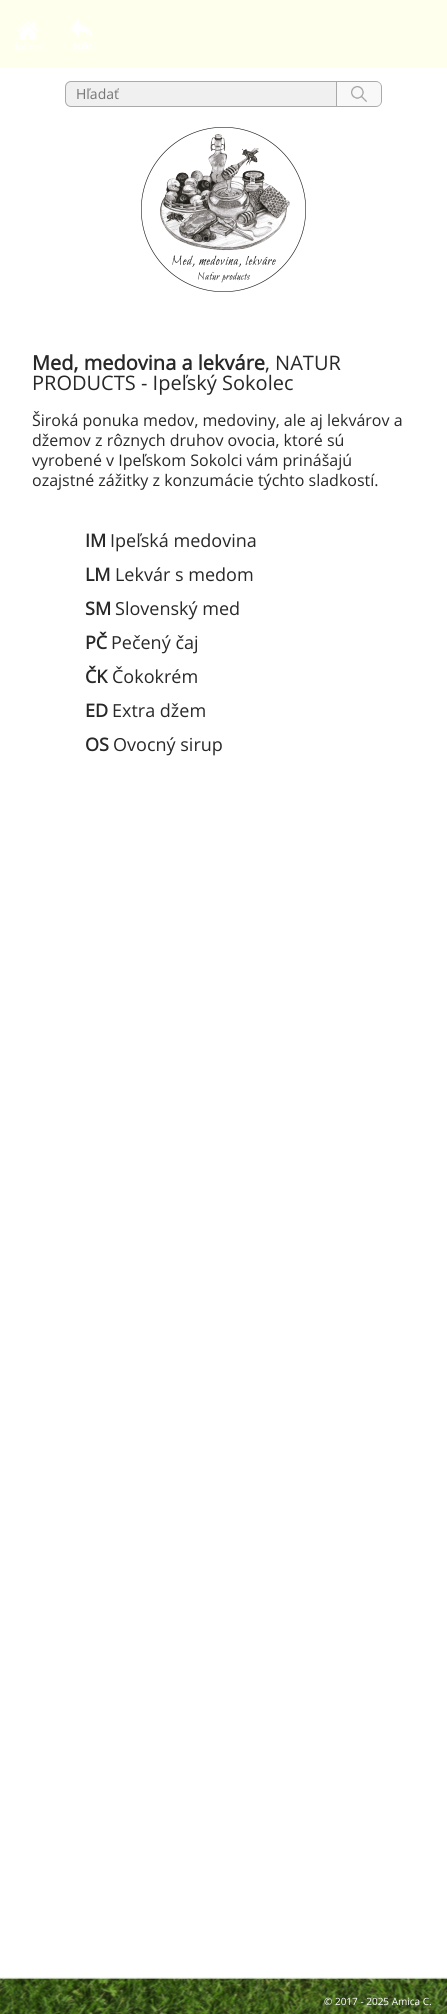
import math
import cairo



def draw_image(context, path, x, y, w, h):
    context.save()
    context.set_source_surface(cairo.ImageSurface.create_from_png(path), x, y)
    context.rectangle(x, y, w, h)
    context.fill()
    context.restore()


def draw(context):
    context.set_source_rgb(1, 1, 1)
    context.paint()
    context.set_source_rgb(1, 1, 238 / 255)
    context.rectangle(0, 0, 447, 68)
    context.fill()
    draw_image(context, "images/1.png", 12, 22, 31, 28)
    draw_image(context, "images/2.png", 70, 20, 23, 30)
    context.set_source_rgb(240 / 255, 240 / 255, 240 / 255)
    context.new_path()
    context.move_to(71, 81.5)
    context.line_to(336.5, 81.5)
    context.line_to(336.5, 106.5)
    context.line_to(71, 106.5)
    context.curve_to(68, 106.5, 65.5, 104, 65.5, 101)
    context.line_to(65.5, 87)
    context.curve_to(65.5, 84, 68, 81.5, 71, 81.5)
    context.close_path()
    context.fill_preserve()
    context.set_source_rgb(170 / 255, 170 / 255, 170 / 255)
    context.set_line_width(1)
    context.stroke()
    context.set_source_rgb(248 / 255, 248 / 255, 248 / 255)
    context.new_path()
    context.move_to(337, 81)
    context.line_to(376, 81)
    context.curve_to(379.5, 81, 382, 83.5, 382, 87)
    context.line_to(382, 101)
    context.curve_to(382, 104.5, 379.5, 107, 376, 107)
    context.line_to(337, 107)
    context.close_path()
    context.fill()
    draw_image(context, "images/3.png", 351, 86, 16, 16)
    context.set_source_rgb(170 / 255, 170 / 255, 170 / 255)
    context.set_fill_rule(cairo.FillRule.EVEN_ODD)
    context.new_path()
    context.move_to(337, 81)
    context.line_to(376, 81)
    context.curve_to(379, 81, 382, 84, 382, 87)
    context.line_to(382, 101)
    context.curve_to(382, 104, 379, 107, 376, 107)
    context.line_to(337, 107)
    context.close_path()
    context.move_to(337, 82)
    context.line_to(376, 82)
    context.curve_to(379, 82, 381, 84, 381, 87)
    context.line_to(381, 101)
    context.curve_to(381, 104, 379, 106, 376, 106)
    context.line_to(337, 106)
    context.close_path()
    context.fill()
    draw_image(context, "images/4.png", 141, 127, 165, 165)
    draw_image(context, "images/5.png", 0, 1977, 447, 37)
    context.select_font_face("Open Sans")
    context.set_font_size(14)
    context.set_source_rgb(117 / 255, 117 / 255, 117 / 255)
    context.move_to(76, 99)
    context.show_text("Hľadať")
    context.select_font_face("Open Sans", cairo.FontSlant.NORMAL, cairo.FontWeight.BOLD)
    context.set_font_size(20)
    context.set_source_rgb(40 / 255, 40 / 255, 40 / 255)
    context.move_to(32, 370)
    context.show_text("Med, medovina a lekváre")
    context.select_font_face("Open Sans")
    context.move_to(265, 370)
    context.show_text(", NATUR")
    context.move_to(32, 390)
    context.show_text("PRODUCTS - Ipeľský Sokolec")
    context.set_font_size(16)
    context.move_to(32, 426)
    context.show_text("Široká ponuka medov, medoviny, ale aj lekvárov a")
    context.move_to(32, 446)
    context.show_text("džemov z rôznych druhov ovocia, ktoré sú")
    context.move_to(32, 466)
    context.show_text("vyrobené v Ipeľskom Sokolci vám prinášajú")
    context.move_to(32, 486)
    context.show_text("ozajstné zážitky z konzumácie týchto sladkostí.")
    context.select_font_face("Open Sans", cairo.FontSlant.NORMAL, cairo.FontWeight.BOLD)
    context.set_font_size(18)
    context.move_to(85, 547)
    context.show_text("IM")
    context.select_font_face("Open Sans")
    context.move_to(110, 547)
    context.show_text("Ipeľská medovina")
    context.select_font_face("Open Sans", cairo.FontSlant.NORMAL, cairo.FontWeight.BOLD)
    context.move_to(85, 581)
    context.show_text("LM")
    context.select_font_face("Open Sans")
    context.move_to(115, 581)
    context.show_text("Lekvár s medom")
    context.select_font_face("Open Sans", cairo.FontSlant.NORMAL, cairo.FontWeight.BOLD)
    context.move_to(85, 615)
    context.show_text("SM")
    context.select_font_face("Open Sans")
    context.move_to(115, 615)
    context.show_text("Slovenský med")
    context.select_font_face("Open Sans", cairo.FontSlant.NORMAL, cairo.FontWeight.BOLD)
    context.move_to(85, 649)
    context.show_text("PČ")
    context.select_font_face("Open Sans")
    context.move_to(111, 649)
    context.show_text("Pečený čaj")
    context.select_font_face("Open Sans", cairo.FontSlant.NORMAL, cairo.FontWeight.BOLD)
    context.move_to(85, 683)
    context.show_text("ČK")
    context.select_font_face("Open Sans")
    context.move_to(112, 683)
    context.show_text("Čokokrém")
    context.select_font_face("Open Sans", cairo.FontSlant.NORMAL, cairo.FontWeight.BOLD)
    context.move_to(85, 717)
    context.show_text("ED")
    context.select_font_face("Open Sans")
    context.move_to(112, 717)
    context.show_text("Extra džem")
    context.select_font_face("Open Sans", cairo.FontSlant.NORMAL, cairo.FontWeight.BOLD)
    context.move_to(85, 751)
    context.show_text("OS")
    context.select_font_face("Open Sans")
    context.move_to(113, 751)
    context.show_text("Ovocný sirup")
    context.set_font_size(10)
    context.set_source_rgb(1, 1, 1)
    context.move_to(324, 2005)
    context.show_text("© 2017 - 2025 Amica C.")


surface = cairo.ImageSurface(cairo.Format.RGB24, 447, 2014)
context = cairo.Context(surface)
options = cairo.FontOptions()
options.set_hint_metrics(cairo.HintMetrics.OFF)
options.set_hint_style(cairo.HintStyle.NONE)
context.set_font_options(options)
context.set_miter_limit(4)
draw(context)
surface.write_to_png("out.png")
